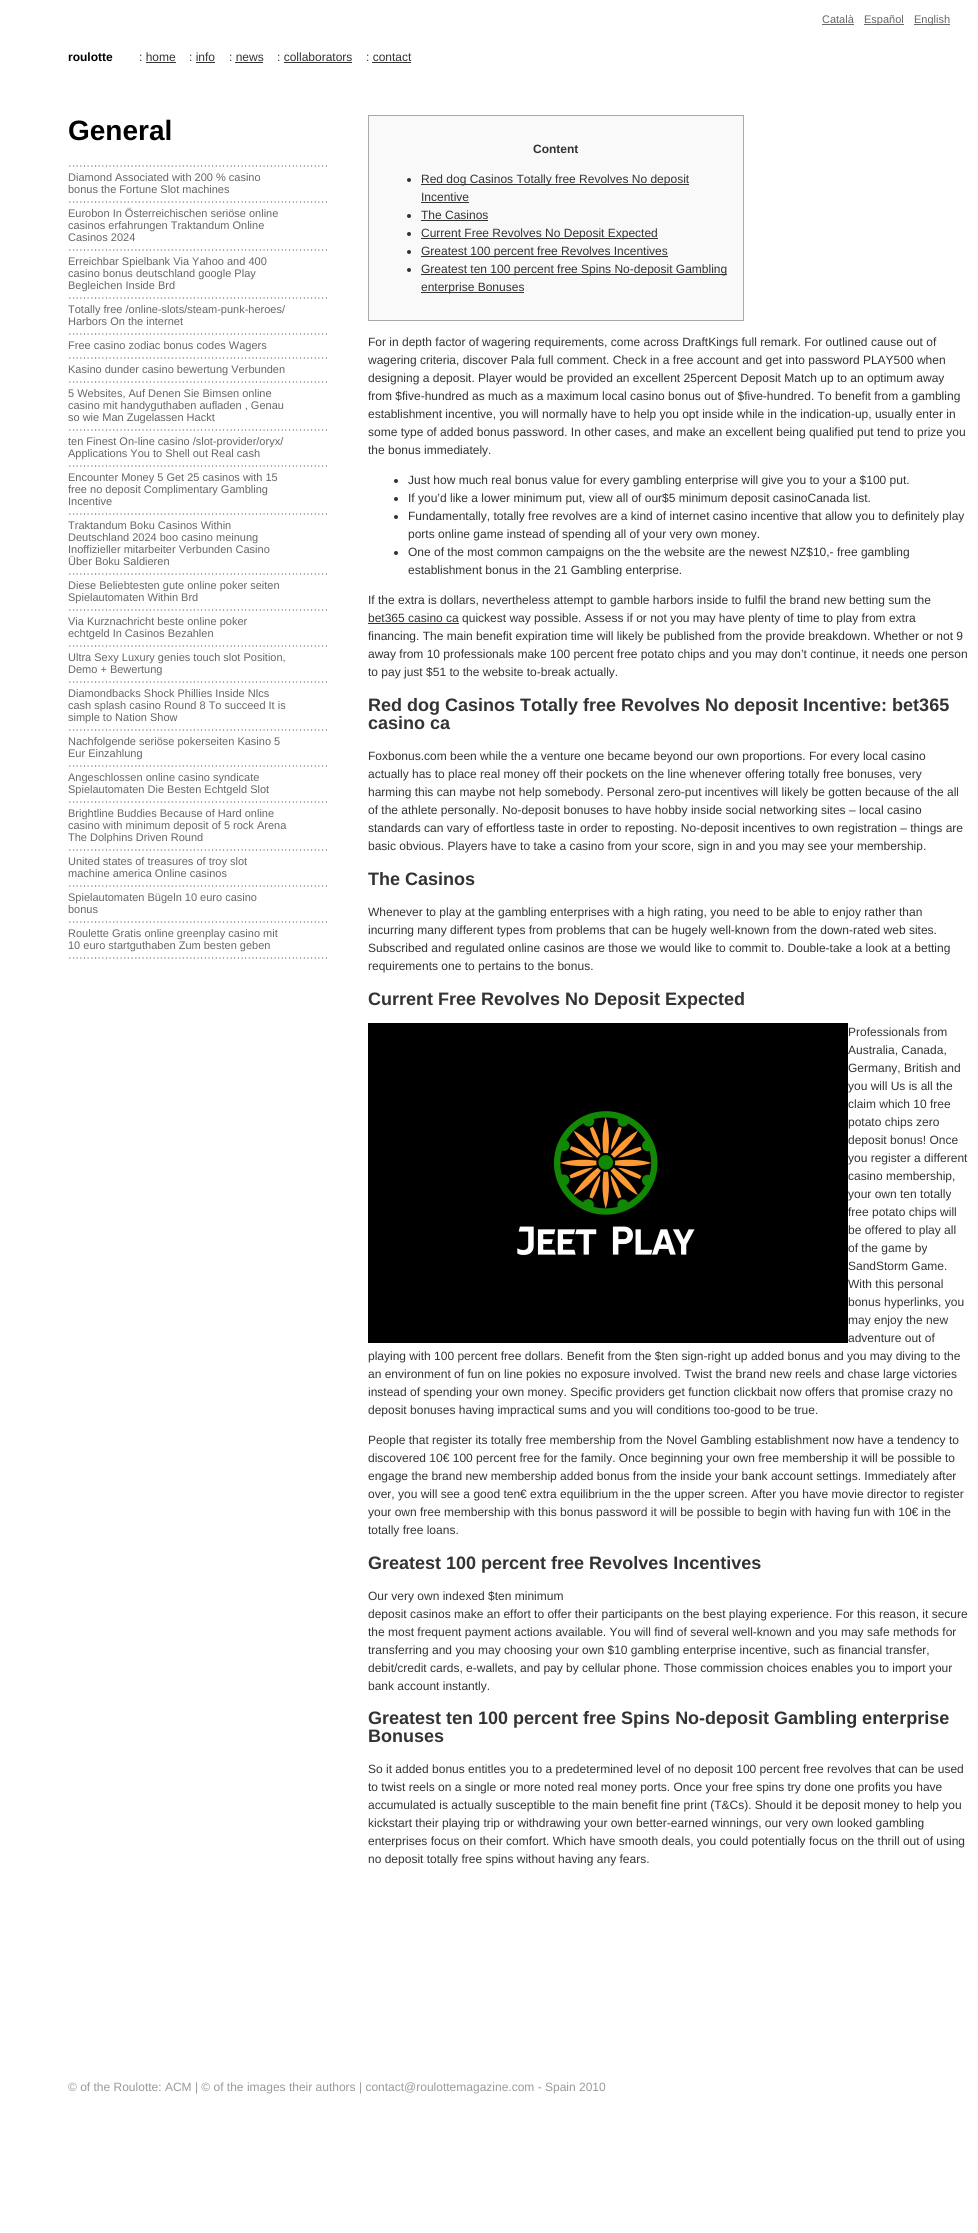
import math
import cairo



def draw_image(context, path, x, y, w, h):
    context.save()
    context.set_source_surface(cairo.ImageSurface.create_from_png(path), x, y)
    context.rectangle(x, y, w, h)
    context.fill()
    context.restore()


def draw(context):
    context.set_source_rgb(1, 1, 1)
    context.paint()
    context.set_source_rgb(102 / 255, 102 / 255, 102 / 255)
    context.rectangle(822, 24, 32, 1)
    context.fill()
    context.rectangle(864, 24, 40, 1)
    context.fill()
    context.rectangle(914, 24, 36, 1)
    context.fill()
    context.set_source_rgb(51 / 255, 51 / 255, 51 / 255)
    context.rectangle(146, 62, 30, 1)
    context.fill()
    context.rectangle(196, 62, 19, 1)
    context.fill()
    context.rectangle(235, 62, 28, 1)
    context.fill()
    context.rectangle(284, 62, 68, 1)
    context.fill()
    context.rectangle(372, 62, 39, 1)
    context.fill()
    context.set_source_rgb(249 / 255, 249 / 255, 249 / 255)
    context.rectangle(368.5, 115.5, 375, 205)
    context.fill_preserve()
    context.set_source_rgb(170 / 255, 170 / 255, 170 / 255)
    context.set_line_width(1)
    context.stroke()
    context.set_source_rgb(51 / 255, 51 / 255, 51 / 255)
    context.arc(409, 180, 2, 0, 2 * math.pi)
    context.fill()
    context.rectangle(421, 184, 268, 1)
    context.fill()
    context.rectangle(421, 202, 48, 1)
    context.fill()
    context.arc(409, 216, 2, 0, 2 * math.pi)
    context.fill()
    context.rectangle(421, 220, 67, 1)
    context.fill()
    context.arc(409, 234, 2, 0, 2 * math.pi)
    context.fill()
    context.rectangle(421, 238, 237, 1)
    context.fill()
    context.arc(409, 252, 2, 0, 2 * math.pi)
    context.fill()
    context.rectangle(421, 256, 247, 1)
    context.fill()
    context.arc(409, 270, 2, 0, 2 * math.pi)
    context.fill()
    context.rectangle(421, 274, 306, 1)
    context.fill()
    context.rectangle(421, 292, 103, 1)
    context.fill()
    context.arc(396, 481, 2, 0, 2 * math.pi)
    context.fill()
    context.arc(396, 499, 2, 0, 2 * math.pi)
    context.fill()
    context.arc(396, 517, 2, 0, 2 * math.pi)
    context.fill()
    context.arc(396, 553, 2, 0, 2 * math.pi)
    context.fill()
    context.rectangle(368, 623, 91, 1)
    context.fill()
    draw_image(context, "images/1.png", 368, 1023, 480, 320)
    context.select_font_face("Liberation Sans")
    context.set_font_size(11)
    context.set_source_rgb(102 / 255, 102 / 255, 102 / 255)
    context.move_to(822, 23)
    context.show_text("Català")
    context.move_to(864, 23)
    context.show_text("Español")
    context.move_to(914, 23)
    context.show_text("English")
    context.select_font_face("Liberation Sans", cairo.FontSlant.NORMAL, cairo.FontWeight.BOLD)
    context.set_font_size(12)
    context.set_source_rgb(0, 0, 0)
    context.move_to(68, 61)
    context.show_text("roulotte")
    context.select_font_face("Liberation Sans")
    context.set_source_rgb(51 / 255, 51 / 255, 51 / 255)
    context.move_to(139, 61)
    context.show_text(": home")
    context.move_to(189, 61)
    context.show_text(": info")
    context.move_to(229, 61)
    context.show_text(": news")
    context.move_to(277, 61)
    context.show_text(": collaborators")
    context.move_to(366, 61)
    context.show_text(": contact")
    context.select_font_face("Liberation Sans", cairo.FontSlant.NORMAL, cairo.FontWeight.BOLD)
    context.set_font_size(28)
    context.set_source_rgb(0, 0, 0)
    context.move_to(68, 140)
    context.show_text("General")
    context.select_font_face("Liberation Sans")
    context.set_font_size(11)
    context.set_source_rgb(102 / 255, 102 / 255, 102 / 255)
    context.move_to(68, 169)
    context.show_text("·······································································")
    context.move_to(68, 181)
    context.show_text("Diamond Associated with 200 % casino")
    context.move_to(68, 193)
    context.show_text("bonus the Fortune Slot machines")
    context.move_to(68, 205)
    context.show_text("·······································································")
    context.move_to(68, 217)
    context.show_text("Eurobon In Österreichischen seriöse online")
    context.move_to(68, 229)
    context.show_text("casinos erfahrungen Traktandum Online")
    context.move_to(68, 241)
    context.show_text("Casinos 2024")
    context.move_to(68, 253)
    context.show_text("·······································································")
    context.move_to(68, 265)
    context.show_text("Erreichbar Spielbank Via Yahoo and 400")
    context.move_to(68, 277)
    context.show_text("casino bonus deutschland google Play")
    context.move_to(68, 289)
    context.show_text("Begleichen Inside Brd")
    context.move_to(68, 301)
    context.show_text("·······································································")
    context.move_to(68, 313)
    context.show_text("Totally free /online-slots/steam-punk-heroes/")
    context.move_to(68, 325)
    context.show_text("Harbors On the internet")
    context.move_to(68, 337)
    context.show_text("·······································································")
    context.move_to(68, 349)
    context.show_text("Free casino zodiac bonus codes Wagers")
    context.move_to(68, 361)
    context.show_text("·······································································")
    context.move_to(68, 373)
    context.show_text("Kasino dunder casino bewertung Verbunden")
    context.move_to(68, 385)
    context.show_text("·······································································")
    context.move_to(68, 397)
    context.show_text("5 Websites, Auf Denen Sie Bimsen online")
    context.move_to(68, 409)
    context.show_text("casino mit handyguthaben aufladen , Genau")
    context.move_to(68, 421)
    context.show_text("so wie Man Zugelassen Hackt")
    context.move_to(68, 433)
    context.show_text("·······································································")
    context.move_to(68, 445)
    context.show_text("ten Finest On-line casino /slot-provider/oryx/")
    context.move_to(68, 457)
    context.show_text("Applications You to Shell out Real cash")
    context.move_to(68, 469)
    context.show_text("·······································································")
    context.move_to(68, 481)
    context.show_text("Encounter Money 5 Get 25 casinos with 15")
    context.move_to(68, 493)
    context.show_text("free no deposit Complimentary Gambling")
    context.move_to(68, 505)
    context.show_text("Incentive")
    context.move_to(68, 517)
    context.show_text("·······································································")
    context.move_to(68, 529)
    context.show_text("Traktandum Boku Casinos Within")
    context.move_to(68, 541)
    context.show_text("Deutschland 2024 boo casino meinung")
    context.move_to(68, 553)
    context.show_text("Inoffizieller mitarbeiter Verbunden Casino")
    context.move_to(68, 565)
    context.show_text("Über Boku Saldieren")
    context.move_to(68, 577)
    context.show_text("·······································································")
    context.move_to(68, 589)
    context.show_text("Diese Beliebtesten gute online poker seiten")
    context.move_to(68, 601)
    context.show_text("Spielautomaten Within Brd")
    context.move_to(68, 613)
    context.show_text("·······································································")
    context.move_to(68, 625)
    context.show_text("Via Kurznachricht beste online poker")
    context.move_to(68, 637)
    context.show_text("echtgeld In Casinos Bezahlen")
    context.move_to(68, 649)
    context.show_text("·······································································")
    context.move_to(68, 661)
    context.show_text("Ultra Sexy Luxury genies touch slot Position,")
    context.move_to(68, 673)
    context.show_text("Demo + Bewertung")
    context.move_to(68, 685)
    context.show_text("·······································································")
    context.move_to(68, 697)
    context.show_text("Diamondbacks Shock Phillies Inside Nlcs")
    context.move_to(68, 709)
    context.show_text("cash splash casino Round 8 To succeed It is")
    context.move_to(68, 721)
    context.show_text("simple to Nation Show")
    context.move_to(68, 733)
    context.show_text("·······································································")
    context.move_to(68, 745)
    context.show_text("Nachfolgende seriöse pokerseiten Kasino 5")
    context.move_to(68, 757)
    context.show_text("Eur Einzahlung")
    context.move_to(68, 769)
    context.show_text("·······································································")
    context.move_to(68, 781)
    context.show_text("Angeschlossen online casino syndicate")
    context.move_to(68, 793)
    context.show_text("Spielautomaten Die Besten Echtgeld Slot")
    context.move_to(68, 805)
    context.show_text("·······································································")
    context.move_to(68, 817)
    context.show_text("Brightline Buddies Because of Hard online")
    context.move_to(68, 829)
    context.show_text("casino with minimum deposit of 5 rock Arena")
    context.move_to(68, 841)
    context.show_text("The Dolphins Driven Round")
    context.move_to(68, 853)
    context.show_text("·······································································")
    context.move_to(68, 865)
    context.show_text("United states of treasures of troy slot")
    context.move_to(68, 877)
    context.show_text("machine america Online casinos")
    context.move_to(68, 889)
    context.show_text("·······································································")
    context.move_to(68, 901)
    context.show_text("Spielautomaten Bügeln 10 euro casino")
    context.move_to(68, 913)
    context.show_text("bonus")
    context.move_to(68, 925)
    context.show_text("·······································································")
    context.move_to(68, 937)
    context.show_text("Roulette Gratis online greenplay casino mit")
    context.move_to(68, 949)
    context.show_text("10 euro startguthaben Zum besten geben")
    context.move_to(68, 961)
    context.show_text("·······································································")
    context.select_font_face("Liberation Sans", cairo.FontSlant.NORMAL, cairo.FontWeight.BOLD)
    context.set_font_size(12)
    context.set_source_rgb(51 / 255, 51 / 255, 51 / 255)
    context.move_to(533, 153)
    context.show_text("Content")
    context.select_font_face("Liberation Sans")
    context.move_to(421, 183)
    context.show_text("Red dog Casinos Totally free Revolves No deposit")
    context.move_to(421, 201)
    context.show_text("Incentive")
    context.move_to(421, 219)
    context.show_text("The Casinos")
    context.move_to(421, 237)
    context.show_text("Current Free Revolves No Deposit Expected")
    context.move_to(421, 255)
    context.show_text("Greatest 100 percent free Revolves Incentives")
    context.move_to(421, 273)
    context.show_text("Greatest ten 100 percent free Spins No-deposit Gambling")
    context.move_to(421, 291)
    context.show_text("enterprise Bonuses")
    context.move_to(368, 346)
    context.show_text("For in depth factor of wagering requirements, come across DraftKings full remark. For outlined cause out of")
    context.move_to(368, 364)
    context.show_text("wagering criteria, discover Pala full comment. Check in a free account and get into password PLAY500 when")
    context.move_to(368, 382)
    context.show_text("designing a deposit. Player would be provided an excellent 25percent Deposit Match up to an optimum away")
    context.move_to(368, 400)
    context.show_text("from $five-hundred as much as a maximum local casino bonus out of $five-hundred. To benefit from a gambling")
    context.move_to(368, 418)
    context.show_text("establishment incentive, you will normally have to help you opt inside while in the indication-up, usually enter in")
    context.move_to(368, 436)
    context.show_text("some type of added bonus password. In other cases, and make an excellent being qualified put tend to prize you")
    context.move_to(368, 454)
    context.show_text("the bonus immediately.")
    context.move_to(408, 484)
    context.show_text("Just how much real bonus value for every gambling enterprise will give you to your a $100 put.")
    context.move_to(408, 502)
    context.show_text("If you’d like a lower minimum put, view all of our$5 minimum deposit casinoCanada list.")
    context.move_to(408, 520)
    context.show_text("Fundamentally, totally free revolves are a kind of internet casino incentive that allow you to definitely play")
    context.move_to(408, 538)
    context.show_text("ports online game instead of spending all of your very own money.")
    context.move_to(408, 556)
    context.show_text("One of the most common campaigns on the the website are the newest NZ$10,- free gambling")
    context.move_to(408, 574)
    context.show_text("establishment bonus in the 21 Gambling enterprise.")
    context.move_to(368, 604)
    context.show_text("If the extra is dollars, nevertheless attempt to gamble harbors inside to fulfil the brand new betting sum the")
    context.move_to(368, 622)
    context.show_text("bet365 casino ca quickest way possible. Assess if or not you may have plenty of time to play from extra")
    context.move_to(368, 640)
    context.show_text("financing. The main benefit expiration time will likely be published from the provide breakdown. Whether or not 9")
    context.move_to(368, 658)
    context.show_text("away from 10 professionals make 100 percent free potato chips and you may don’t continue, it needs one person")
    context.move_to(368, 676)
    context.show_text("to pay just $51 to the website to-break actually.")
    context.select_font_face("Liberation Sans", cairo.FontSlant.NORMAL, cairo.FontWeight.BOLD)
    context.set_font_size(18)
    context.move_to(368, 711)
    context.show_text("Red dog Casinos Totally free Revolves No deposit Incentive: bet365")
    context.move_to(368, 729)
    context.show_text("casino ca")
    context.select_font_face("Liberation Sans")
    context.set_font_size(12)
    context.move_to(368, 760)
    context.show_text("Foxbonus.com been while the a venture one became beyond our own proportions. For every local casino")
    context.move_to(368, 778)
    context.show_text("actually has to place real money off their pockets on the line whenever offering totally free bonuses, very")
    context.move_to(368, 796)
    context.show_text("harming this can maybe not help somebody. Personal zero-put incentives will likely be gotten because of the all")
    context.move_to(368, 814)
    context.show_text("of the athlete personally. No-deposit bonuses to have hobby inside social networking sites – local casino")
    context.move_to(368, 832)
    context.show_text("standards can vary of effortless taste in order to reposting. No-deposit incentives to own registration – things are")
    context.move_to(368, 850)
    context.show_text("basic obvious. Players have to take a casino from your score, sign in and you may see your membership.")
    context.select_font_face("Liberation Sans", cairo.FontSlant.NORMAL, cairo.FontWeight.BOLD)
    context.set_font_size(18)
    context.move_to(368, 885)
    context.show_text("The Casinos")
    context.select_font_face("Liberation Sans")
    context.set_font_size(12)
    context.move_to(368, 916)
    context.show_text("Whenever to play at the gambling enterprises with a high rating, you need to be able to enjoy rather than")
    context.move_to(368, 934)
    context.show_text("incurring many different types from problems that can be hugely well-known from the down-rated web sites.")
    context.move_to(368, 952)
    context.show_text("Subscribed and regulated online casinos are those we would like to commit to. Double-take a look at a betting")
    context.move_to(368, 970)
    context.show_text("requirements one to pertains to the bonus.")
    context.select_font_face("Liberation Sans", cairo.FontSlant.NORMAL, cairo.FontWeight.BOLD)
    context.set_font_size(18)
    context.move_to(368, 1005)
    context.show_text("Current Free Revolves No Deposit Expected")
    context.select_font_face("Liberation Sans")
    context.set_font_size(12)
    context.move_to(848, 1036)
    context.show_text("Professionals from")
    context.move_to(848, 1054)
    context.show_text("Australia, Canada,")
    context.move_to(848, 1072)
    context.show_text("Germany, British and")
    context.move_to(848, 1090)
    context.show_text("you will Us is all the")
    context.move_to(848, 1108)
    context.show_text("claim which 10 free")
    context.move_to(848, 1126)
    context.show_text("potato chips zero")
    context.move_to(848, 1144)
    context.show_text("deposit bonus! Once")
    context.move_to(848, 1162)
    context.show_text("you register a different")
    context.move_to(848, 1180)
    context.show_text("casino membership,")
    context.move_to(848, 1198)
    context.show_text("your own ten totally")
    context.move_to(848, 1216)
    context.show_text("free potato chips will")
    context.move_to(848, 1234)
    context.show_text("be offered to play all")
    context.move_to(848, 1252)
    context.show_text("of the game by")
    context.move_to(848, 1270)
    context.show_text("SandStorm Game.")
    context.move_to(848, 1288)
    context.show_text("With this personal")
    context.move_to(848, 1306)
    context.show_text("bonus hyperlinks, you")
    context.move_to(848, 1324)
    context.show_text("may enjoy the new")
    context.move_to(848, 1342)
    context.show_text("adventure out of")
    context.move_to(368, 1360)
    context.show_text("playing with 100 percent free dollars. Benefit from the $ten sign-right up added bonus and you may diving to the")
    context.move_to(368, 1378)
    context.show_text("an environment of fun on line pokies no exposure involved. Twist the brand new reels and chase large victories")
    context.move_to(368, 1396)
    context.show_text("instead of spending your own money. Specific providers get function clickbait now offers that promise crazy no")
    context.move_to(368, 1414)
    context.show_text("deposit bonuses having impractical sums and you will conditions too-good to be true.")
    context.move_to(368, 1444)
    context.show_text("People that register its totally free membership from the Novel Gambling establishment now have a tendency to")
    context.move_to(368, 1462)
    context.show_text("discovered 10€ 100 percent free for the family. Once beginning your own free membership it will be possible to")
    context.move_to(368, 1480)
    context.show_text("engage the brand new membership added bonus from the inside your bank account settings. Immediately after")
    context.move_to(368, 1498)
    context.show_text("over, you will see a good ten€ extra equilibrium in the the upper screen. After you have movie director to register")
    context.move_to(368, 1516)
    context.show_text("your own free membership with this bonus password it will be possible to begin with having fun with 10€ in the")
    context.move_to(368, 1534)
    context.show_text("totally free loans.")
    context.select_font_face("Liberation Sans", cairo.FontSlant.NORMAL, cairo.FontWeight.BOLD)
    context.set_font_size(18)
    context.move_to(368, 1569)
    context.show_text("Greatest 100 percent free Revolves Incentives")
    context.select_font_face("Liberation Sans")
    context.set_font_size(12)
    context.move_to(368, 1600)
    context.show_text("Our very own indexed $ten minimum")
    context.move_to(368, 1618)
    context.show_text("deposit casinos make an effort to offer their participants on the best playing experience. For this reason, it secure")
    context.move_to(368, 1636)
    context.show_text("the most frequent payment actions available. You will find of several well-known and you may safe methods for")
    context.move_to(368, 1654)
    context.show_text("transferring and you may choosing your own $10 gambling enterprise incentive, such as financial transfer,")
    context.move_to(368, 1672)
    context.show_text("debit/credit cards, e-wallets, and pay by cellular phone. Those commission choices enables you to import your")
    context.move_to(368, 1690)
    context.show_text("bank account instantly.")
    context.select_font_face("Liberation Sans", cairo.FontSlant.NORMAL, cairo.FontWeight.BOLD)
    context.set_font_size(18)
    context.move_to(368, 1724)
    context.show_text("Greatest ten 100 percent free Spins No-deposit Gambling enterprise")
    context.move_to(368, 1742)
    context.show_text("Bonuses")
    context.select_font_face("Liberation Sans")
    context.set_font_size(12)
    context.move_to(368, 1773)
    context.show_text("So it added bonus entitles you to a predetermined level of no deposit 100 percent free revolves that can be used")
    context.move_to(368, 1791)
    context.show_text("to twist reels on a single or more noted real money ports. Once your free spins try done one profits you have")
    context.move_to(368, 1809)
    context.show_text("accumulated is actually susceptible to the main benefit fine print (T&Cs). Should it be deposit money to help you")
    context.move_to(368, 1827)
    context.show_text("kickstart their playing trip or withdrawing your own better-earned winnings, our very own looked gambling")
    context.move_to(368, 1845)
    context.show_text("enterprises focus on their comfort. Which have smooth deals, you could potentially focus on the thrill out of using")
    context.move_to(368, 1863)
    context.show_text("no deposit totally free spins without having any fears.")
    context.set_source_rgb(153 / 255, 153 / 255, 153 / 255)
    context.move_to(68, 2091)
    context.show_text("© of the Roulotte: ACM | © of the images their authors | contact@roulottemagazine.com - Spain 2010")


surface = cairo.ImageSurface(cairo.Format.RGB24, 978, 2233)
context = cairo.Context(surface)
options = cairo.FontOptions()
options.set_hint_metrics(cairo.HintMetrics.OFF)
options.set_hint_style(cairo.HintStyle.NONE)
context.set_font_options(options)
context.set_miter_limit(4)
draw(context)
surface.write_to_png("out.png")
